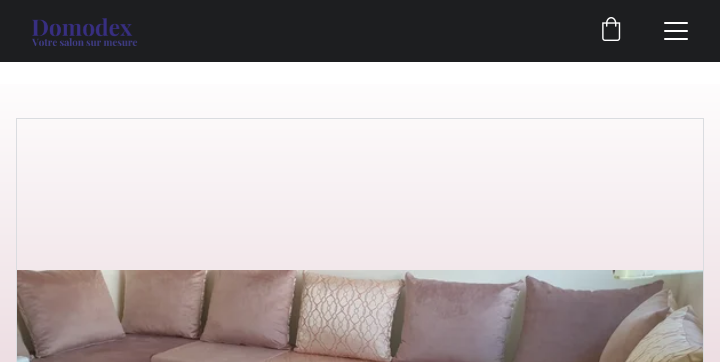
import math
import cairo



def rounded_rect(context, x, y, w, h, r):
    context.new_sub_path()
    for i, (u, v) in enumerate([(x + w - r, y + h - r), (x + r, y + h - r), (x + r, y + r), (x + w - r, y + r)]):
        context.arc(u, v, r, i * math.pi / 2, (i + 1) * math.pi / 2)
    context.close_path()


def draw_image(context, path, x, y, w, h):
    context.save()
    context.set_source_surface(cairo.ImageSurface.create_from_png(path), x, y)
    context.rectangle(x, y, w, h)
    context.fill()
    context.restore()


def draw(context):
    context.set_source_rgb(1, 1, 1)
    context.paint()
    context.set_source_rgb(29 / 255, 30 / 255, 32 / 255)
    context.rectangle(0, 0, 720, 62)
    context.fill()
    draw_image(context, "images/1.png", 32, 18, 106, 28)
    draw_image(context, "images/2.png", 602, 17, 19, 24)
    context.set_source_rgb(1, 1, 1)
    rounded_rect(context, 664, 22, 24, 2, 1)
    context.fill()
    rounded_rect(context, 664, 30, 24, 2, 1)
    context.fill()
    rounded_rect(context, 664, 38, 24, 2, 1)
    context.fill()
    gradient = cairo.LinearGradient(360, 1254, 360, 62)
    gradient.add_color_stop_rgba(0, 182 / 255, 121 / 255, 141 / 255, 1)
    gradient.add_color_stop_rgba(1, 1, 1, 1, 1)
    context.set_source(gradient)
    context.rectangle(0, 84, 720, 278)
    context.fill()
    context.rectangle(16.5, 118.5, 687, 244)
    context.set_source_rgb(218 / 255, 220 / 255, 224 / 255)
    context.set_line_width(1)
    context.stroke()
    draw_image(context, "images/3.png", 17, 270, 686, 92)


surface = cairo.ImageSurface(cairo.Format.RGB24, 720, 362)
context = cairo.Context(surface)
options = cairo.FontOptions()
options.set_hint_metrics(cairo.HintMetrics.OFF)
options.set_hint_style(cairo.HintStyle.NONE)
context.set_font_options(options)
context.set_miter_limit(4)
draw(context)
surface.write_to_png("out.png")
